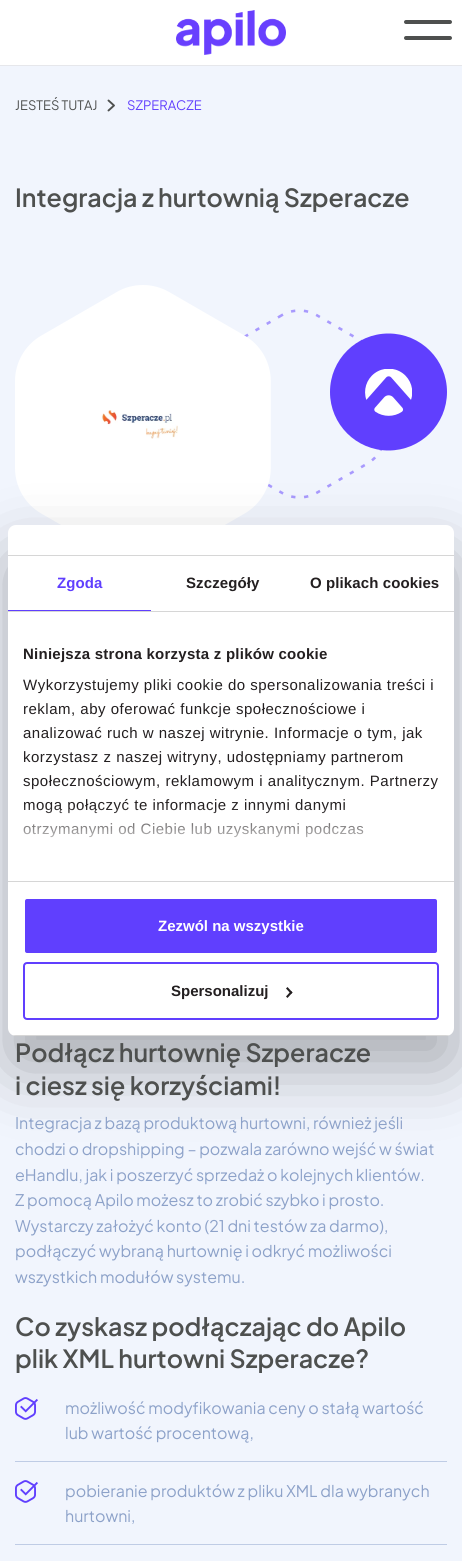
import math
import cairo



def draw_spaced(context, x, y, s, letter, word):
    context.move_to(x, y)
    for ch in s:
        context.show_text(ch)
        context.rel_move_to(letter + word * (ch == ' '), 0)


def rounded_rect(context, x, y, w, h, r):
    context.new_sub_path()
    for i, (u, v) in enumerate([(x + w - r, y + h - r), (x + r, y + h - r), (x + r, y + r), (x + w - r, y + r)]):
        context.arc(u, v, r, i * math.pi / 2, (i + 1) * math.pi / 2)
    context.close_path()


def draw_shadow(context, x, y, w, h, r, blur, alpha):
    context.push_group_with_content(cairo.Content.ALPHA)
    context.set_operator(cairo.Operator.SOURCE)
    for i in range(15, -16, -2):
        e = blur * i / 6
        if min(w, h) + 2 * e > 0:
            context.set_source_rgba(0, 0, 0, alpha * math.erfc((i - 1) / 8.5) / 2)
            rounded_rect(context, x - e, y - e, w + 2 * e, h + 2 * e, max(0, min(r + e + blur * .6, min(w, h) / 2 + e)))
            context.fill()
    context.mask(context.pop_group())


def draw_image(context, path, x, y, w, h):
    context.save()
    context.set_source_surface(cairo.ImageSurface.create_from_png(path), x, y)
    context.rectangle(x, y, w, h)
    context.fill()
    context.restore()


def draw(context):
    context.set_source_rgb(241 / 255, 245 / 255, 253 / 255)
    context.paint()
    context.set_source_rgb(230 / 255, 231 / 255, 235 / 255)
    context.rectangle(0, 65, 462, 1)
    context.fill()
    context.set_source_rgb(1, 1, 1)
    context.rectangle(0, 0, 462, 65)
    context.fill()
    draw_image(context, "images/1.png", 176, 10, 110, 45)
    context.set_source_rgb(78 / 255, 80 / 255, 79 / 255)
    rounded_rect(context, 404, 20, 48, 4, 2)
    context.fill()
    rounded_rect(context, 404, 36, 48, 4, 2)
    context.fill()
    context.new_path()
    context.move_to(108.5, 110.5)
    context.line_to(114, 105.5)
    context.line_to(108.5, 100.5)
    context.set_line_width(1.9)
    context.set_line_cap(cairo.LineCap.ROUND)
    context.set_line_join(cairo.LineJoin.ROUND)
    context.stroke()
    draw_image(context, "images/2.png", 15, 285, 432, 240)
    draw_image(context, "images/3.png", 101, 410, 77, 29)
    context.set_source_rgb(191 / 255, 204 / 255, 229 / 255)
    context.rectangle(15, 1461, 432, 1)
    context.fill()
    draw_image(context, "images/4.png", 15, 1397, 23, 23)
    context.rectangle(15, 1544, 432, 1)
    context.fill()
    draw_image(context, "images/4.png", 15, 1480, 23, 23)
    context.set_source_rgb(0, 0, 0)
    draw_shadow(context, 8, 557, 446, 511, 8, 34, 0.3)
    context.set_source_rgb(1, 1, 1)
    rounded_rect(context, 8, 525, 446, 511, 8)
    context.fill()
    context.set_source_rgb(214 / 255, 214 / 255, 214 / 255)
    context.rectangle(8, 555, 446, 1)
    context.fill()
    context.rectangle(8, 611, 446, 1)
    context.fill()
    context.set_source_rgb(96 / 255, 63 / 255, 254 / 255)
    context.rectangle(8, 610, 143, 1)
    context.fill()
    context.set_source_rgb(214 / 255, 214 / 255, 214 / 255)
    context.rectangle(8, 881, 446, 1)
    context.fill()
    context.save()
    rounded_rect(context, 8, 525, 446, 511, 8)
    context.clip()
    context.rectangle(8, 1035, 446, 1)
    context.fill()
    context.restore()
    context.set_source_rgb(96 / 255, 63 / 255, 254 / 255)
    rounded_rect(context, 24, 898, 414, 56, 3)
    context.fill_preserve()
    context.set_source_rgb(1, 1, 1)
    context.set_line_width(2)
    context.set_line_cap(cairo.LineCap.BUTT)
    context.set_line_join(cairo.LineJoin.MITER)
    context.stroke()
    rounded_rect(context, 24, 963, 414, 56, 3)
    context.set_source_rgb(96 / 255, 63 / 255, 254 / 255)
    context.stroke()
    context.set_source_rgb(35 / 255, 31 / 255, 32 / 255)
    context.new_path()
    context.move_to(287.5, 987)
    context.line_to(292.5, 992.5)
    context.line_to(291, 994)
    context.line_to(286, 988.5)
    context.close_path()
    context.fill()
    context.new_path()
    context.move_to(291, 991)
    context.line_to(292.5, 992.5)
    context.line_to(287.5, 998)
    context.line_to(286, 996.5)
    context.close_path()
    context.fill()
    context.select_font_face("Plus Jakarta Sans")
    context.set_font_size(13)
    context.set_source_rgb(78 / 255, 80 / 255, 79 / 255)
    context.move_to(15, 110)
    context.show_text("JESTEŚ TUTAJ")
    context.set_source_rgb(96 / 255, 63 / 255, 254 / 255)
    context.move_to(127, 110)
    context.show_text("SZPERACZE")
    context.select_font_face("Plus Jakarta Sans SemiBold")
    context.set_font_size(25)
    context.set_source_rgb(78 / 255, 80 / 255, 79 / 255)
    context.move_to(15, 207)
    context.show_text("Integracja z hurtownią Szperacze")
    context.move_to(15, 1062)
    context.show_text("Podłącz hurtownię Szperacze")
    context.move_to(15, 1095)
    context.show_text("i ciesz się korzyściami!")
    context.select_font_face("Plus Jakarta Sans")
    context.set_font_size(16)
    context.set_source_rgb(141 / 255, 162 / 255, 201 / 255)
    context.move_to(15, 1129)
    context.show_text("Integracja z bazą produktową hurtowni, również jeśli")
    context.move_to(15, 1155)
    context.show_text("chodzi o dropshipping – pozwala zarówno wejść w świat")
    context.move_to(15, 1181)
    context.show_text("eHandlu, jak i poszerzyć sprzedaż o kolejnych klientów.")
    context.move_to(15, 1206)
    context.show_text("Z pomocą Apilo możesz to zrobić szybko i prosto.")
    context.move_to(15, 1232)
    context.show_text("Wystarczy założyć konto (21 dni testów za darmo),")
    context.move_to(15, 1257)
    context.show_text("podłączyć wybraną hurtownię i odkryć możliwości")
    context.move_to(15, 1283)
    context.show_text("wszystkich modułów systemu.")
    context.select_font_face("Plus Jakarta Sans SemiBold")
    context.set_font_size(25)
    context.set_source_rgb(78 / 255, 80 / 255, 79 / 255)
    context.move_to(15, 1336)
    context.show_text("Co zyskasz podłączając do Apilo")
    context.move_to(15, 1368)
    context.show_text("plik XML hurtowni Szperacze?")
    context.select_font_face("Plus Jakarta Sans")
    context.set_font_size(16)
    context.set_source_rgb(141 / 255, 162 / 255, 201 / 255)
    context.move_to(65, 1414)
    context.show_text("możliwość modyfikowania ceny o stałą wartość")
    context.move_to(65, 1439)
    context.show_text("lub wartość procentową,")
    context.move_to(65, 1497)
    context.show_text("pobieranie produktów z pliku XML dla wybranych")
    context.move_to(65, 1522)
    context.show_text("hurtowni,")
    context.select_font_face("Liberation Sans", cairo.FontSlant.NORMAL, cairo.FontWeight.BOLD)
    context.set_font_size(15)
    context.set_source_rgb(96 / 255, 63 / 255, 254 / 255)
    draw_spaced(context, 57, 588, "Zgoda", 0.1, 0)
    context.set_source_rgb(35 / 255, 31 / 255, 32 / 255)
    draw_spaced(context, 186, 588, "Szczegóły", 0.1, 0)
    draw_spaced(context, 310, 588, "O plikach cookies", 0.1, 0)
    draw_spaced(context, 23, 659, "Niniejsza strona korzysta z plików cookie", 0.25, 0)
    context.select_font_face("Liberation Sans")
    draw_spaced(context, 23, 690, "Wykorzystujemy pliki cookie do spersonalizowania treści i", 0.5, 0)
    draw_spaced(context, 23, 714, "reklam, aby oferować funkcje społecznościowe i", 0.5, 0)
    draw_spaced(context, 23, 738, "analizować ruch w naszej witrynie. Informacje o tym, jak", 0.5, 0)
    draw_spaced(context, 23, 762, "korzystasz z naszej witryny, udostępniamy partnerom", 0.5, 0)
    draw_spaced(context, 23, 786, "społecznościowym, reklamowym i analitycznym. Partnerzy", 0.5, 0)
    draw_spaced(context, 23, 810, "mogą połączyć te informacje z innymi danymi", 0.5, 0)
    draw_spaced(context, 23, 834, "otrzymanymi od Ciebie lub uzyskanymi podczas", 0.5, 0)
    gradient = cairo.LinearGradient(225, 881, 225, 806)
    gradient.add_color_stop_rgba(0, 1, 1, 1, 1)
    gradient.add_color_stop_rgba(0.5, 1, 1, 1, 0.8)
    gradient.add_color_stop_rgba(1, 1, 1, 1, 0)
    context.set_source(gradient)
    context.rectangle(23, 807, 341, 31)
    context.fill()
    context.select_font_face("Liberation Sans", cairo.FontSlant.NORMAL, cairo.FontWeight.BOLD)
    context.set_source_rgb(1, 1, 1)
    context.move_to(158, 931)
    context.show_text("Zezwól na wszystkie")
    context.set_source_rgb(35 / 255, 31 / 255, 32 / 255)
    context.move_to(171, 996)
    context.show_text("Spersonalizuj")


surface = cairo.ImageSurface(cairo.Format.RGB24, 462, 1561)
context = cairo.Context(surface)
options = cairo.FontOptions()
options.set_hint_metrics(cairo.HintMetrics.OFF)
options.set_hint_style(cairo.HintStyle.NONE)
context.set_font_options(options)
context.set_miter_limit(4)
draw(context)
surface.write_to_png("out.png")
